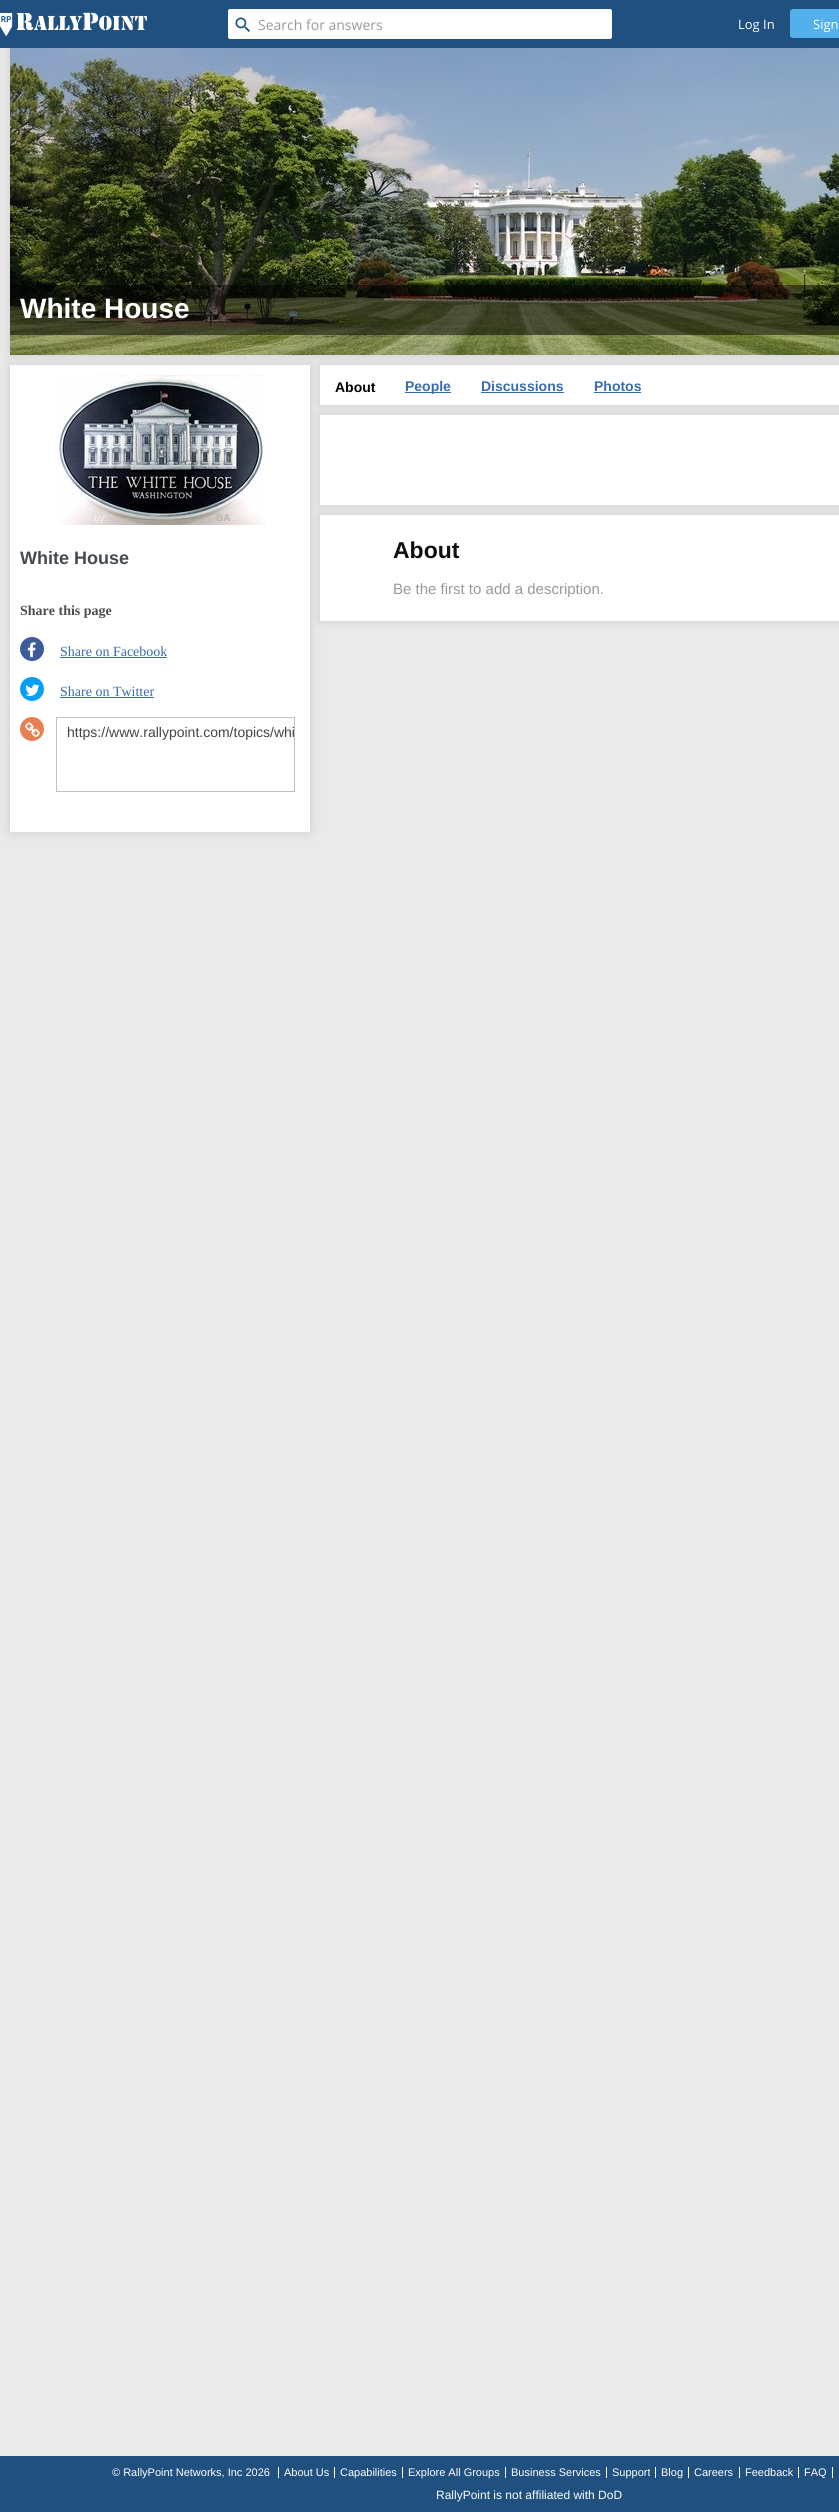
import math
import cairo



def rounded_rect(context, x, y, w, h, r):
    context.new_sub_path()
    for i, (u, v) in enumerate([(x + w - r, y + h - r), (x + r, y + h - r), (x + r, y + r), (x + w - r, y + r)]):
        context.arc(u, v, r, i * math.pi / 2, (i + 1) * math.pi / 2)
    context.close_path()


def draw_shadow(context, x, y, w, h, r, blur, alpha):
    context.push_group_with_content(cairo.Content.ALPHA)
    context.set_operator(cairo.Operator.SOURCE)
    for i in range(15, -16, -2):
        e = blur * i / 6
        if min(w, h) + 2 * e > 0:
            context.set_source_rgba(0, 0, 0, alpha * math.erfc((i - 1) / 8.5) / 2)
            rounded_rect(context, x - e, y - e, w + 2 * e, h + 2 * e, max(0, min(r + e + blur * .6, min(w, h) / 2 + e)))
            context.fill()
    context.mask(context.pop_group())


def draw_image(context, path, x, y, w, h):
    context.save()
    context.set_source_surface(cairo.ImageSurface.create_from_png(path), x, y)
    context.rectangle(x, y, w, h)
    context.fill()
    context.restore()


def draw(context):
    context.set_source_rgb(234 / 255, 234 / 255, 234 / 255)
    context.paint()
    context.set_source_rgb(204 / 255, 204 / 255, 204 / 255)
    draw_shadow(context, 10, 365, 300, 467, 0, 5, 1)
    context.set_source_rgb(1, 1, 1)
    context.rectangle(10, 365, 300, 467)
    context.fill()
    context.set_source_rgb(204 / 255, 204 / 255, 204 / 255)
    draw_shadow(context, 320, 365, 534, 40, 0, 5, 1)
    context.set_source_rgb(1, 1, 1)
    context.rectangle(320, 365, 519, 40)
    context.fill()
    context.set_source_rgb(204 / 255, 204 / 255, 204 / 255)
    draw_shadow(context, 10, 15, 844, 340, 0, 5, 1)
    context.set_source_rgb(31 / 255, 80 / 255, 128 / 255)
    context.rectangle(0, 0, 839, 48)
    context.fill()
    draw_image(context, "images/1.png", 0, 12, 147, 25)
    context.set_source_rgb(1, 1, 1)
    rounded_rect(context, 228, 9, 384, 30, 2)
    context.fill()
    draw_image(context, "images/2.png", 235, 17, 15, 15)
    context.set_source_rgb(83 / 255, 176 / 255, 234 / 255)
    rounded_rect(context, 790, 9, 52, 29, 3)
    context.fill()
    draw_image(context, "images/3.png", 10, 48, 829, 307)
    context.set_source_rgba(0, 0, 0, 0.5)
    context.rectangle(10, 285, 829, 50)
    context.fill()
    context.set_source_rgb(56 / 255, 108 / 255, 174 / 255)
    context.rectangle(405, 392, 46, 1)
    context.fill()
    context.rectangle(481, 392, 83, 1)
    context.fill()
    context.rectangle(594, 392, 47, 1)
    context.fill()
    context.set_source_rgb(204 / 255, 204 / 255, 204 / 255)
    draw_shadow(context, 320, 415, 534, 90, 0, 5, 1)
    context.set_source_rgb(1, 1, 1)
    context.rectangle(320, 415, 519, 90)
    context.fill()
    context.set_source_rgb(204 / 255, 204 / 255, 204 / 255)
    draw_shadow(context, 320, 515, 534, 106, 0, 5, 1)
    context.set_source_rgb(1, 1, 1)
    context.rectangle(320, 515, 519, 106)
    context.fill()
    draw_image(context, "images/4.png", 55, 375, 211, 150)
    context.set_source_rgb(60 / 255, 91 / 255, 155 / 255)
    context.arc(32, 649, 12, 0, 2 * math.pi)
    context.fill()
    draw_image(context, "images/5.png", 27, 642, 9, 16)
    context.set_source_rgb(56 / 255, 108 / 255, 174 / 255)
    context.rectangle(60, 657, 107, 1)
    context.fill()
    context.set_source_rgb(5 / 255, 159 / 255, 245 / 255)
    context.arc(32, 689, 12, 0, 2 * math.pi)
    context.fill()
    draw_image(context, "images/6.png", 25, 684, 15, 12)
    context.set_source_rgb(56 / 255, 108 / 255, 174 / 255)
    context.rectangle(60, 697, 94, 1)
    context.fill()
    context.set_source_rgb(233 / 255, 128 / 255, 84 / 255)
    context.arc(32, 729, 12, 0, 2 * math.pi)
    context.fill()
    draw_image(context, "images/7.png", 25, 722, 15, 15)
    context.rectangle(56.5, 717.5, 238, 74)
    context.set_source_rgb(193 / 255, 193 / 255, 193 / 255)
    context.set_line_width(1)
    context.stroke()
    context.set_source_rgb(32 / 255, 80 / 255, 128 / 255)
    context.rectangle(0, 2456, 839, 56)
    context.fill()
    context.set_source_rgb(1, 1, 1)
    context.rectangle(278, 2467, 1, 11)
    context.fill()
    context.rectangle(334, 2467, 1, 11)
    context.fill()
    context.rectangle(402, 2467, 1, 11)
    context.fill()
    context.rectangle(505, 2467, 1, 11)
    context.fill()
    context.rectangle(606, 2467, 1, 11)
    context.fill()
    context.rectangle(655, 2467, 1, 11)
    context.fill()
    context.rectangle(688, 2467, 1, 11)
    context.fill()
    context.rectangle(739, 2467, 1, 11)
    context.fill()
    context.rectangle(798, 2467, 1, 11)
    context.fill()
    context.rectangle(832, 2467, 1, 11)
    context.fill()
    context.select_font_face("Open Sans")
    context.set_font_size(14)
    context.set_source_rgb(153 / 255, 153 / 255, 153 / 255)
    context.move_to(258, 30)
    context.show_text("Search for answers")
    context.set_font_size(13)
    context.set_source_rgb(1, 1, 1)
    context.move_to(738, 29)
    context.show_text("Log In")
    context.move_to(813, 29)
    context.show_text("Sign")
    context.select_font_face("Liberation Sans", cairo.FontSlant.NORMAL, cairo.FontWeight.BOLD)
    context.set_font_size(28)
    context.move_to(20, 318)
    context.show_text("White House")
    context.set_font_size(14)
    context.set_source_rgb(0, 0, 0)
    context.move_to(335, 392)
    context.show_text("About")
    context.set_source_rgb(56 / 255, 108 / 255, 174 / 255)
    context.move_to(405, 391)
    context.show_text("People")
    context.move_to(481, 391)
    context.show_text("Discussions")
    context.move_to(594, 391)
    context.show_text("Photos")
    context.set_font_size(23)
    context.set_source_rgb(14 / 255, 14 / 255, 14 / 255)
    context.move_to(393, 558)
    context.show_text("About")
    context.select_font_face("Liberation Sans")
    context.set_font_size(15)
    context.set_source_rgb(153 / 255, 153 / 255, 153 / 255)
    context.move_to(393, 594)
    context.show_text("Be the first to add a description.")
    context.set_font_size(10)
    context.set_source_rgb(247 / 255, 243 / 255, 243 / 255)
    context.move_to(94, 521)
    context.show_text("by:")
    context.select_font_face("Liberation Sans", cairo.FontSlant.NORMAL, cairo.FontWeight.BOLD)
    context.set_source_rgb(184 / 255, 182 / 255, 177 / 255)
    context.move_to(216, 521)
    context.show_text("BA")
    context.set_font_size(18)
    context.set_source_rgb(67 / 255, 75 / 255, 81 / 255)
    context.move_to(20, 564)
    context.show_text("White House")
    context.select_font_face("Liberation Serif", cairo.FontSlant.NORMAL, cairo.FontWeight.BOLD)
    context.set_font_size(14)
    context.set_source_rgb(77 / 255, 77 / 255, 77 / 255)
    context.move_to(20, 615)
    context.show_text("Share this page")
    context.select_font_face("Liberation Serif")
    context.set_source_rgb(56 / 255, 108 / 255, 174 / 255)
    context.move_to(60, 656)
    context.show_text("Share on Facebook")
    context.move_to(60, 696)
    context.show_text("Share on Twitter")
    context.select_font_face("Liberation Sans")
    context.set_source_rgb(68 / 255, 68 / 255, 68 / 255)
    context.move_to(67, 737)
    context.show_text("https://www.rallypoint.com/topics/whi")
    context.set_font_size(11)
    context.set_source_rgb(1, 1, 1)
    context.move_to(112, 2476)
    context.show_text("© RallyPoint Networks, Inc 2026")
    context.move_to(284, 2476)
    context.show_text("About Us")
    context.move_to(340, 2476)
    context.show_text("Capabilities")
    context.move_to(408, 2476)
    context.show_text("Explore All Groups")
    context.move_to(511, 2476)
    context.show_text("Business Services")
    context.move_to(612, 2476)
    context.show_text("Support")
    context.move_to(661, 2476)
    context.show_text("Blog")
    context.move_to(694, 2476)
    context.show_text("Careers")
    context.move_to(745, 2476)
    context.show_text("Feedback")
    context.move_to(804, 2476)
    context.show_text("FAQ")
    context.set_font_size(12)
    context.move_to(436, 2499)
    context.show_text("RallyPoint is not affiliated with DoD")


surface = cairo.ImageSurface(cairo.Format.RGB24, 839, 2512)
context = cairo.Context(surface)
options = cairo.FontOptions()
options.set_hint_metrics(cairo.HintMetrics.OFF)
options.set_hint_style(cairo.HintStyle.NONE)
context.set_font_options(options)
context.set_miter_limit(4)
draw(context)
surface.write_to_png("out.png")
